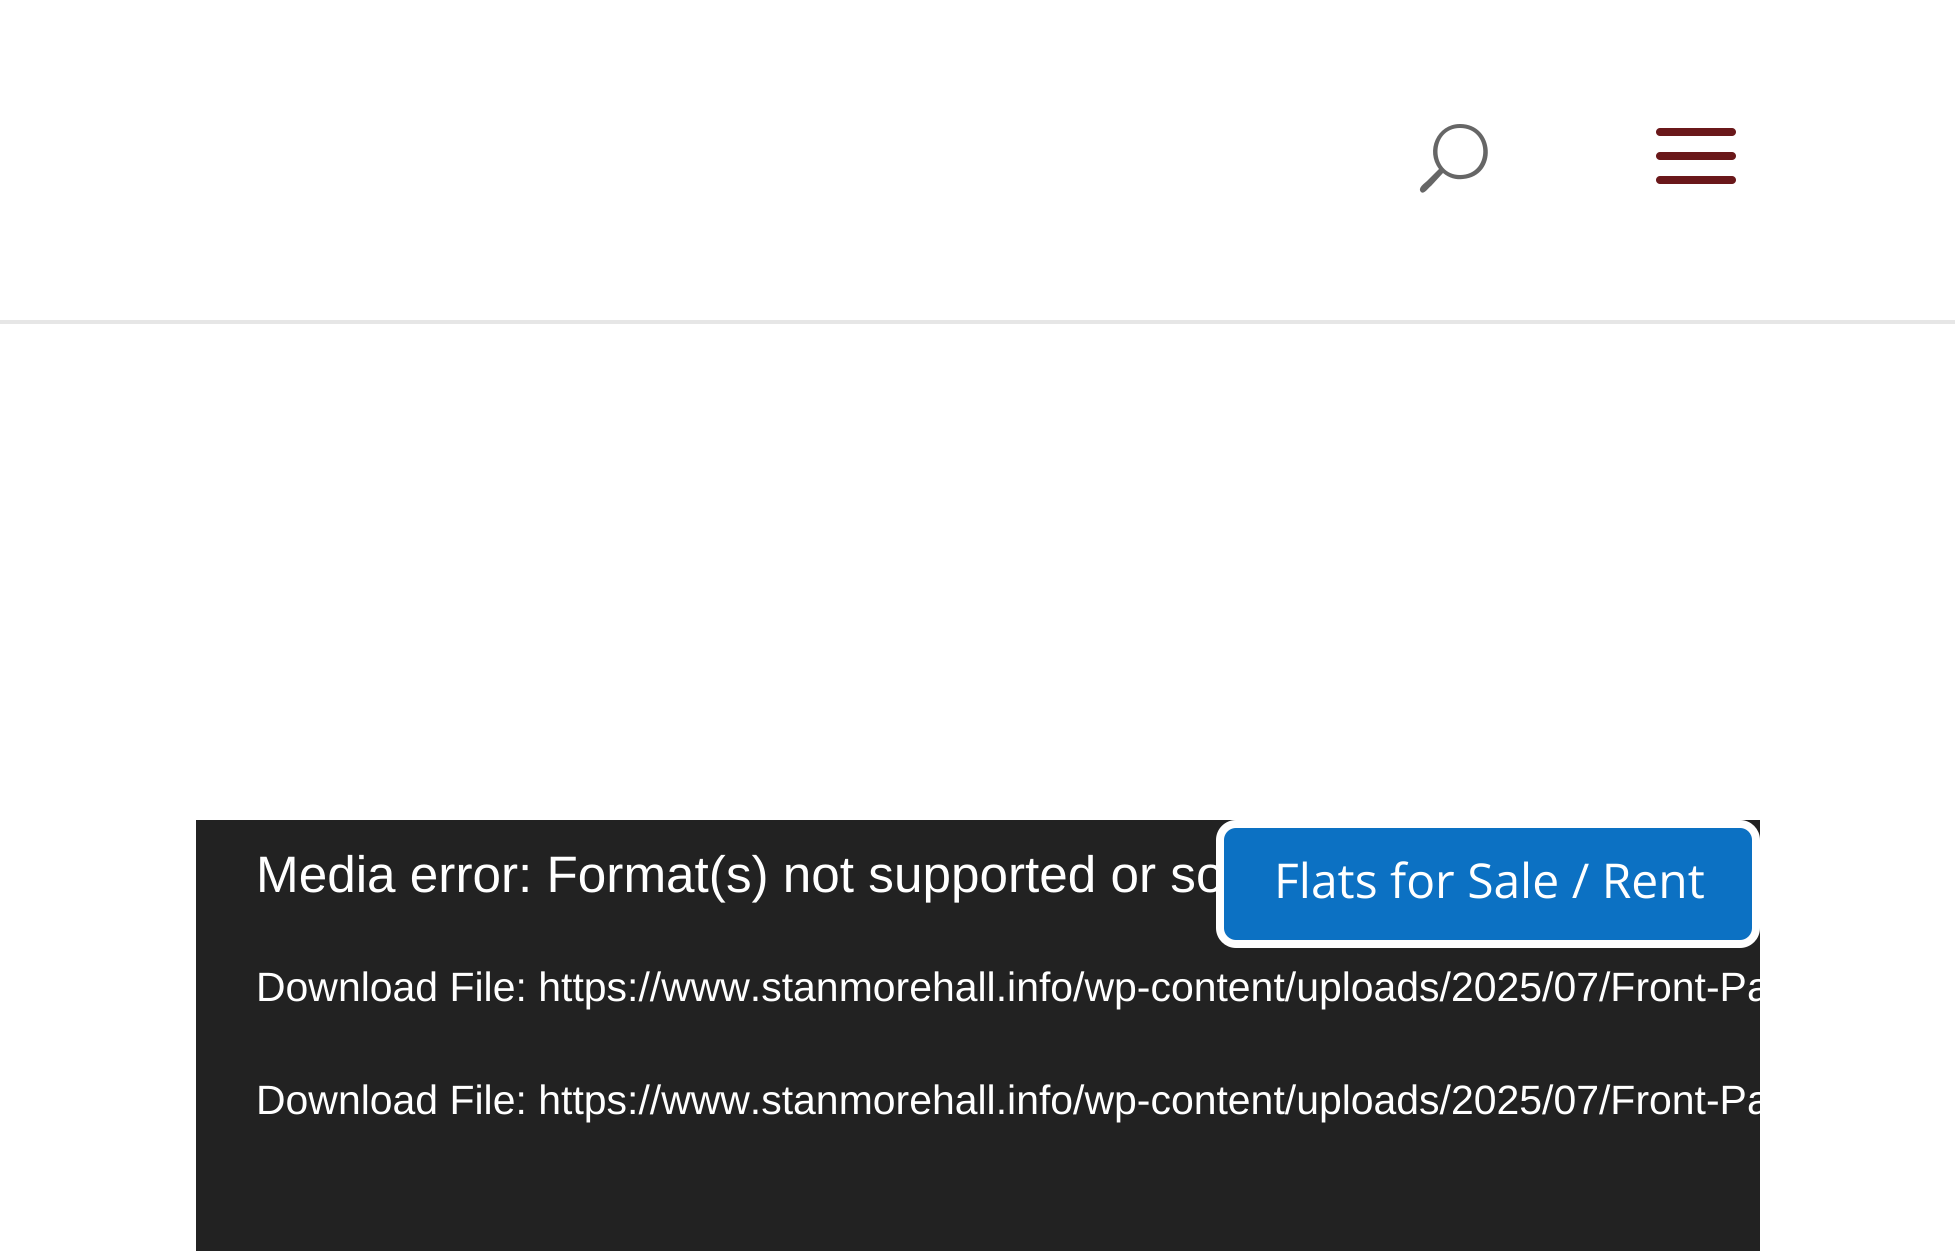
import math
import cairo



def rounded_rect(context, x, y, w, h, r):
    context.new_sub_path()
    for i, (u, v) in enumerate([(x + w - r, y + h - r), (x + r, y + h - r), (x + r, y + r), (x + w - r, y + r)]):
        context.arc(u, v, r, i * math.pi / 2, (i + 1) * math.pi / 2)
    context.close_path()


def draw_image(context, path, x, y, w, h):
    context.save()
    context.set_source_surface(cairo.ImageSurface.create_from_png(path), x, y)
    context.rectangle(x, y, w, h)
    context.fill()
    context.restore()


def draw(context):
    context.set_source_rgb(1, 1, 1)
    context.paint()
    context.set_source_rgb(230 / 255, 230 / 255, 230 / 255)
    context.rectangle(0, 320, 1955, 4)
    context.fill()
    context.set_source_rgb(102 / 255, 102 / 255, 102 / 255)
    context.new_path()
    context.move_to(1460, 124)
    context.curve_to(1437, 124, 1425, 151, 1439, 169)
    context.line_to(1427, 181)
    context.curve_to(1425, 183, 1417, 188, 1421, 192)
    context.curve_to(1424, 195, 1429, 187, 1431, 186)
    context.line_to(1443, 173)
    context.curve_to(1449, 178, 1456, 180, 1463, 179)
    context.curve_to(1498, 176, 1495, 124, 1460, 124)
    context.close_path()
    context.move_to(1460, 175)
    context.curve_to(1430, 175, 1430, 128, 1460, 128)
    context.curve_to(1491, 128, 1491, 175, 1460, 175)
    context.close_path()
    context.fill()
    draw_image(context, "images/1.png", 1656, 128, 80, 56)
    context.set_source_rgb(34 / 255, 34 / 255, 34 / 255)
    context.rectangle(196, 820, 1564, 431)
    context.fill()
    context.select_font_face("Liberation Sans")
    context.set_font_size(51.25)
    context.set_source_rgb(1, 1, 1)
    context.move_to(256, 892)
    context.show_text("Media error: Format(s) not supported or so")
    context.save()
    context.rectangle(196, 820, 1564, 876)
    context.clip()
    context.set_font_size(40.95)
    context.move_to(256, 1001)
    context.show_text("Download File: https://www.stanmorehall.info/wp-content/uploads/2025/07/Front-Pa")
    context.move_to(256, 1114)
    context.show_text("Download File: https://www.stanmorehall.info/wp-content/uploads/2025/07/Front-Pa")
    context.restore()
    context.set_source_rgb(12 / 255, 113 / 255, 195 / 255)
    rounded_rect(context, 1220, 824, 536, 120, 16)
    context.fill_preserve()
    context.set_source_rgb(1, 1, 1)
    context.set_line_width(8)
    context.stroke()
    context.select_font_face("Open Sans")
    context.set_font_size(48)
    context.move_to(1274, 898)
    context.show_text("Flats for Sale / Rent")


surface = cairo.ImageSurface(cairo.Format.RGB24, 1955, 1251)
context = cairo.Context(surface)
options = cairo.FontOptions()
options.set_hint_metrics(cairo.HintMetrics.OFF)
options.set_hint_style(cairo.HintStyle.NONE)
context.set_font_options(options)
context.set_miter_limit(4)
draw(context)
surface.write_to_png("out.png")
